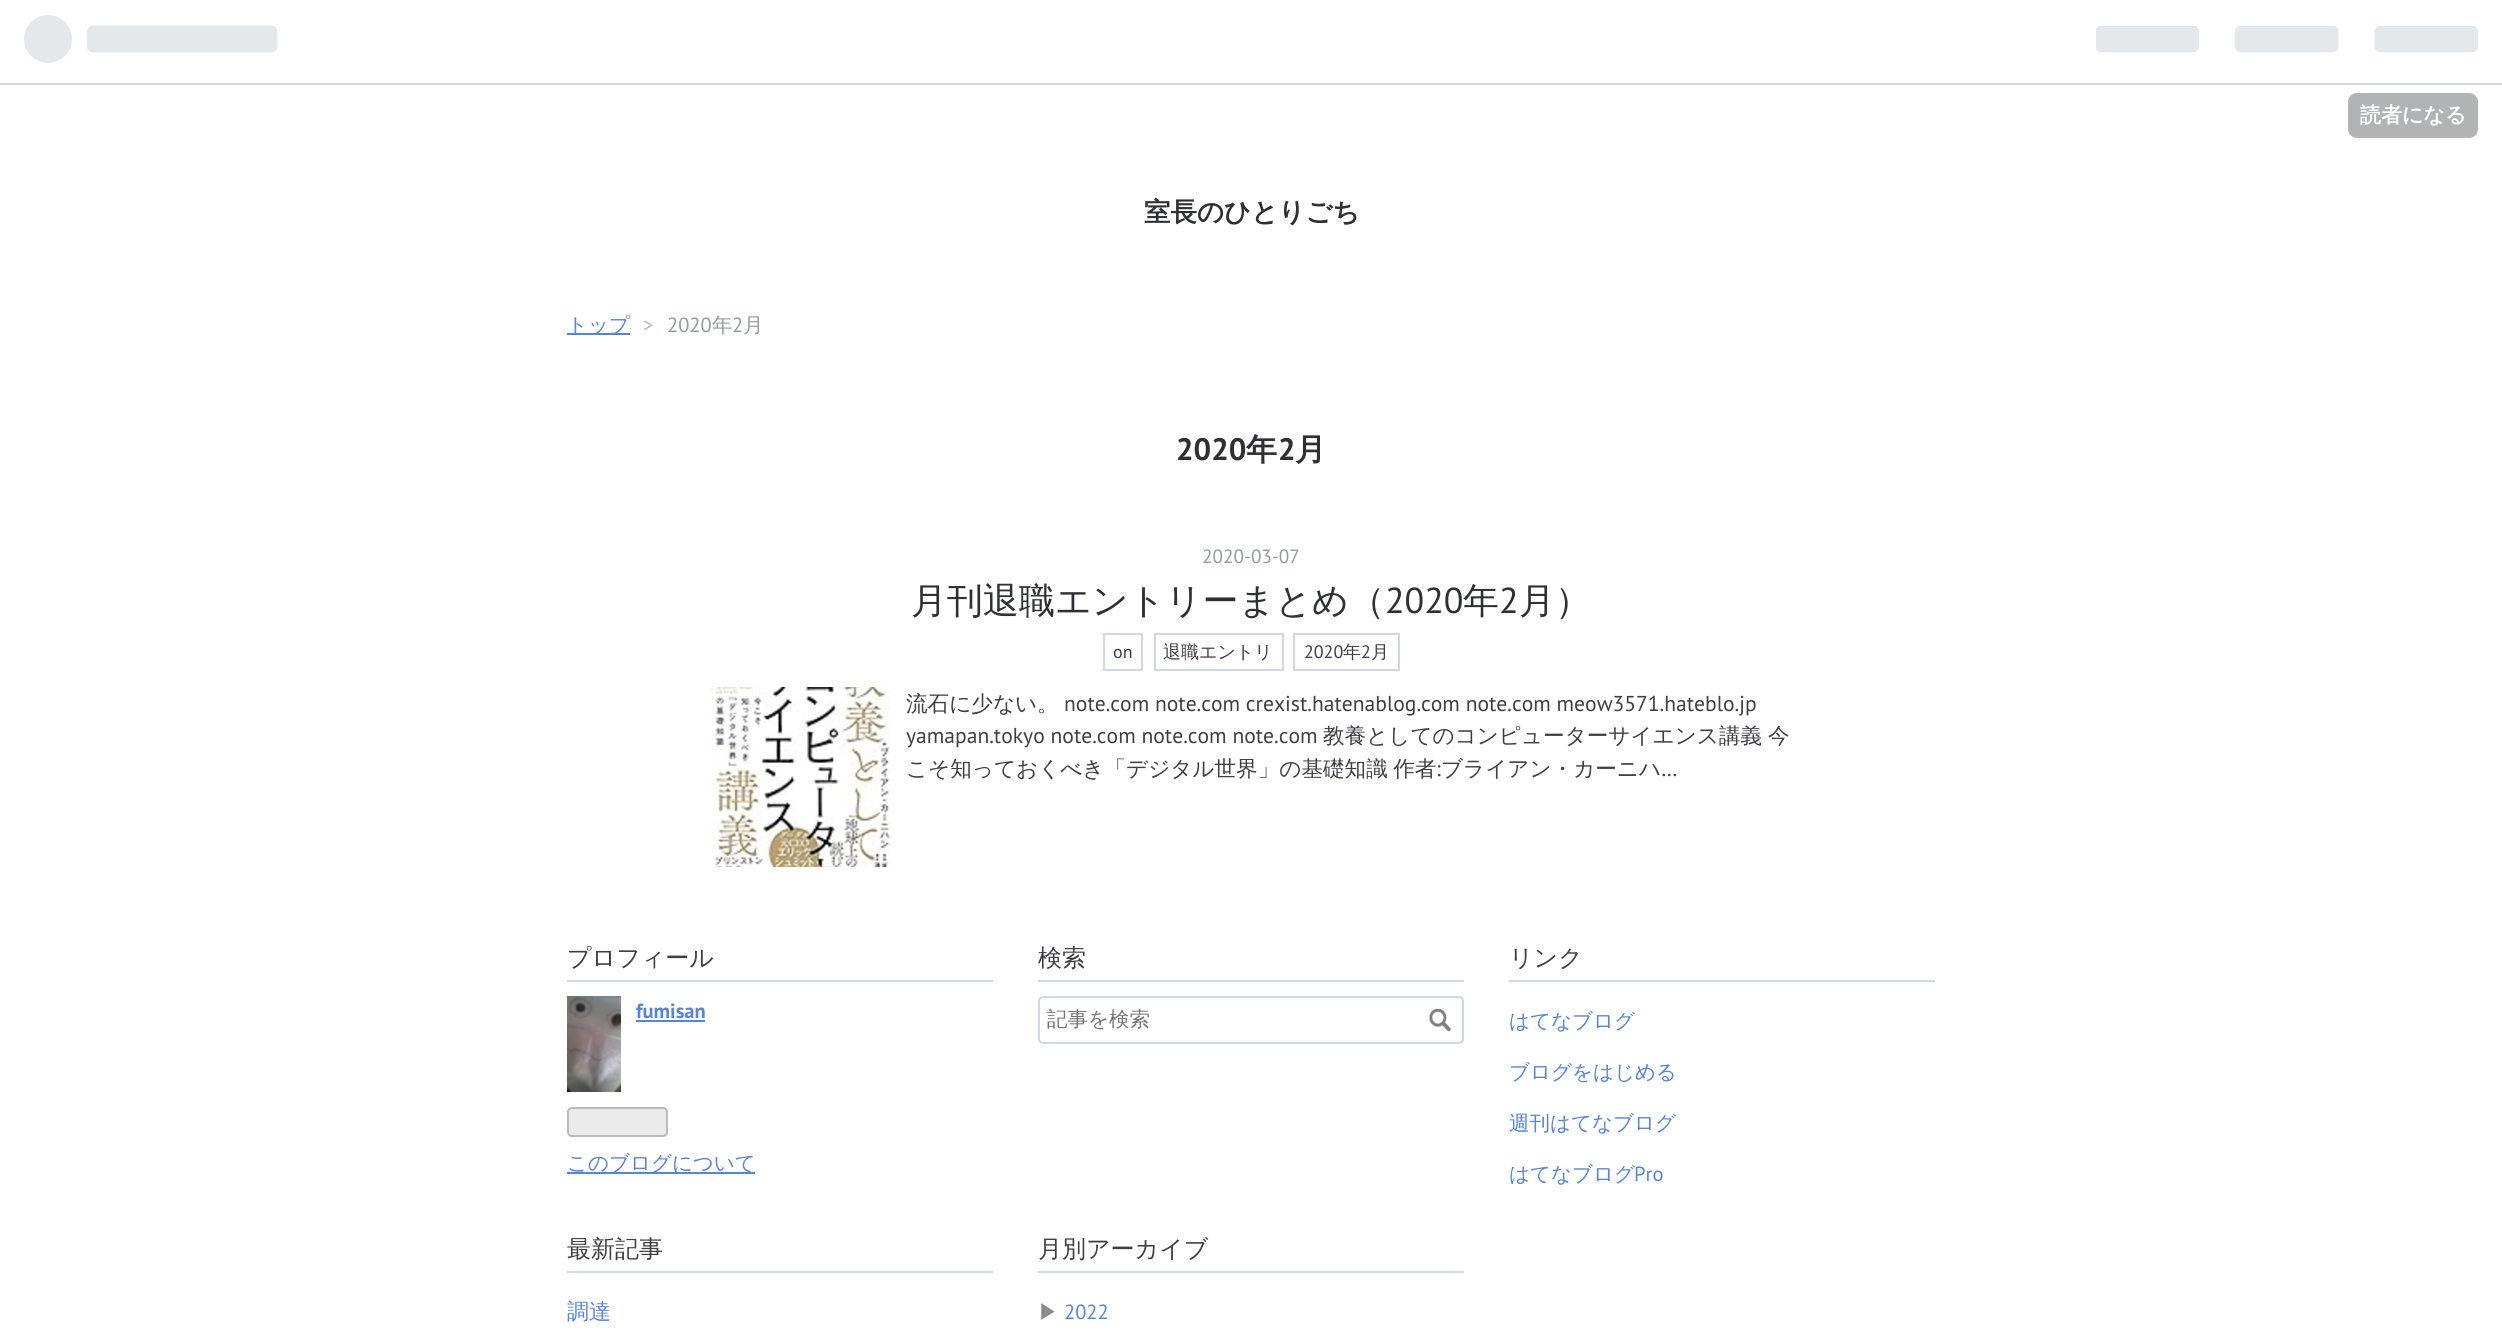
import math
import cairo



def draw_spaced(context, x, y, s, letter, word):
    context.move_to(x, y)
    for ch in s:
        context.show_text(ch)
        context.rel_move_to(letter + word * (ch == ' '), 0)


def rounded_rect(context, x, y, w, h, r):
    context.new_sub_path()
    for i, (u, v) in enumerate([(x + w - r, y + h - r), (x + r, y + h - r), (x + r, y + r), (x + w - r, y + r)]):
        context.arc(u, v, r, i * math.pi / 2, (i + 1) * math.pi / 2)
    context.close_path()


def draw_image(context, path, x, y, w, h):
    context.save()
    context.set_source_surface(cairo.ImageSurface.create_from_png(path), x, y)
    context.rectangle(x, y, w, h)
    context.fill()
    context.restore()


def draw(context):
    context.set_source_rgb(1, 1, 1)
    context.paint()
    context.set_source_rgb(210 / 255, 216 / 255, 221 / 255)
    context.rectangle(0, 83, 2502, 2)
    context.fill()
    draw_image(context, "images/1.png", 24, 15, 254, 48)
    draw_image(context, "images/2.png", 2096, 26, 382, 27)
    context.set_source_rgb(177 / 255, 179 / 255, 181 / 255)
    rounded_rect(context, 2348, 93, 130, 45, 9)
    context.fill()
    context.set_source_rgb(86 / 255, 132 / 255, 215 / 255)
    context.rectangle(567, 333, 63, 2)
    context.fill()
    context.rectangle(1104, 634, 38, 36)
    context.set_source_rgb(210 / 255, 215 / 255, 229 / 255)
    context.stroke()
    context.rectangle(1155, 634, 128, 36)
    context.stroke()
    context.rectangle(1294, 634, 105, 36)
    context.stroke()
    draw_image(context, "images/3.png", 711, 687, 180, 180)
    context.rectangle(567, 980, 426, 2)
    context.fill()
    draw_image(context, "images/4.png", 567, 996, 54, 96)
    context.set_source_rgb(86 / 255, 132 / 255, 215 / 255)
    context.rectangle(636, 1020, 69, 2)
    context.fill()
    context.set_source_rgb(235 / 255, 235 / 255, 235 / 255)
    rounded_rect(context, 568, 1108, 99, 28, 4)
    context.fill_preserve()
    context.set_source_rgb(187 / 255, 187 / 255, 187 / 255)
    context.stroke()
    context.set_source_rgb(86 / 255, 132 / 255, 215 / 255)
    context.rectangle(567, 1172, 188, 2)
    context.fill()
    context.set_source_rgb(210 / 255, 215 / 255, 229 / 255)
    context.rectangle(1038, 980, 426, 2)
    context.fill()
    rounded_rect(context, 1039, 997, 424, 46, 4)
    context.stroke()
    draw_image(context, "images/5.png", 1429, 1008, 22, 24)
    context.rectangle(1509, 980, 426, 2)
    context.fill()
    context.rectangle(567, 1271, 426, 2)
    context.fill()
    context.rectangle(1038, 1271, 426, 2)
    context.fill()
    context.select_font_face("WenQuanYi Zen Hei", cairo.FontSlant.NORMAL, cairo.FontWeight.BOLD)
    context.set_font_size(21)
    context.set_source_rgb(1, 1, 1)
    context.move_to(2360, 122)
    context.show_text("読者になる")
    context.set_font_size(26.5)
    context.set_source_rgb(46 / 255, 48 / 255, 52 / 255)
    context.move_to(1144, 221)
    context.show_text("室長のひとりごち")
    context.select_font_face("WenQuanYi Zen Hei Medium")
    context.set_font_size(20.5)
    context.set_source_rgb(86 / 255, 132 / 255, 215 / 255)
    context.move_to(567, 332)
    context.show_text("トップ")
    context.select_font_face("PT Sans")
    context.set_source_rgb(181 / 255, 186 / 255, 187 / 255)
    context.move_to(643, 332)
    context.show_text(">")
    context.set_source_rgb(149 / 255, 156 / 255, 158 / 255)
    context.move_to(667, 332)
    context.show_text("2020")
    context.select_font_face("WenQuanYi Zen Hei Medium")
    context.move_to(712, 332)
    context.show_text("年")
    context.select_font_face("PT Sans")
    context.move_to(732, 332)
    context.show_text("2")
    context.select_font_face("WenQuanYi Zen Hei Medium")
    context.move_to(743, 332)
    context.show_text("月")
    context.select_font_face("PT Sans", cairo.FontSlant.NORMAL, cairo.FontWeight.BOLD)
    context.set_font_size(31)
    context.set_source_rgb(46 / 255, 48 / 255, 52 / 255)
    context.move_to(1176, 460)
    context.show_text("2020")
    context.select_font_face("WenQuanYi Zen Hei", cairo.FontSlant.NORMAL, cairo.FontWeight.BOLD)
    context.move_to(1246, 460)
    context.show_text("年")
    context.select_font_face("PT Sans", cairo.FontSlant.NORMAL, cairo.FontWeight.BOLD)
    context.move_to(1278, 460)
    context.show_text("2")
    context.select_font_face("WenQuanYi Zen Hei", cairo.FontSlant.NORMAL, cairo.FontWeight.BOLD)
    context.move_to(1295, 460)
    context.show_text("月")
    context.select_font_face("PT Sans")
    context.set_font_size(19.25)
    context.set_source_rgb(149 / 255, 156 / 255, 158 / 255)
    context.move_to(1202, 563)
    context.show_text("2020-03-07")
    context.select_font_face("WenQuanYi Zen Hei Medium")
    context.set_font_size(36)
    context.set_source_rgb(46 / 255, 48 / 255, 52 / 255)
    context.move_to(911, 613)
    context.show_text("月刊退職エントリーまとめ（")
    context.select_font_face("PT Sans")
    context.move_to(1385, 613)
    context.show_text("2020")
    context.select_font_face("WenQuanYi Zen Hei Medium")
    context.move_to(1463, 613)
    context.show_text("年")
    context.select_font_face("PT Sans")
    context.move_to(1499, 613)
    context.show_text("2")
    context.select_font_face("WenQuanYi Zen Hei Medium")
    context.move_to(1519, 613)
    context.show_text("月）")
    context.select_font_face("PT Sans")
    context.set_font_size(18)
    context.set_source_rgb(61 / 255, 63 / 255, 68 / 255)
    context.move_to(1113, 658)
    context.show_text("on")
    context.select_font_face("WenQuanYi Zen Hei Medium")
    context.move_to(1163, 658)
    context.show_text("退職エントリ")
    context.select_font_face("PT Sans")
    context.move_to(1304, 658)
    context.show_text("2020")
    context.select_font_face("WenQuanYi Zen Hei Medium")
    context.move_to(1343, 658)
    context.show_text("年")
    context.select_font_face("PT Sans")
    context.move_to(1361, 658)
    context.show_text("2")
    context.select_font_face("WenQuanYi Zen Hei Medium")
    context.move_to(1371, 658)
    context.show_text("月")
    context.set_font_size(21.6)
    context.move_to(906, 711)
    context.show_text("流石に少ない。")
    context.select_font_face("PT Sans")
    context.move_to(1064, 711)
    context.show_text("note.com note.com crexist.hatenablog.com note.com meow3571.hateblo.jp")
    context.move_to(906, 743)
    context.show_text("yamapan.tokyo note.com note.com note.com")
    context.select_font_face("WenQuanYi Zen Hei Medium")
    context.move_to(1323, 743)
    context.show_text("教養としてのコンピューターサイエンス講義")
    context.move_to(1768, 743)
    context.show_text("今")
    draw_spaced(context, 906, 776, "こそ知っておくべき「デジタル世界」の基礎知識 作者", 0, -1)
    context.select_font_face("PT Sans")
    context.move_to(1436, 776)
    context.show_text(":")
    context.select_font_face("WenQuanYi Zen Hei Medium")
    context.move_to(1441, 776)
    context.show_text("ブライアン・カーニハ")
    context.select_font_face("PT Sans")
    context.move_to(1661, 776)
    context.show_text("…")
    context.select_font_face("WenQuanYi Zen Hei Medium")
    context.set_font_size(24)
    context.move_to(567, 966)
    context.show_text("プロフィール")
    context.select_font_face("PT Sans", cairo.FontSlant.NORMAL, cairo.FontWeight.BOLD)
    context.set_font_size(20.5)
    context.set_source_rgb(86 / 255, 132 / 255, 215 / 255)
    context.move_to(636, 1018)
    context.show_text("fumisan")
    context.select_font_face("WenQuanYi Zen Hei Medium")
    context.move_to(567, 1170)
    context.show_text("このブログについて")
    context.set_font_size(24)
    context.set_source_rgb(61 / 255, 63 / 255, 68 / 255)
    context.move_to(1038, 966)
    context.show_text("検索")
    context.set_font_size(20.5)
    context.set_source_rgb(117 / 255, 117 / 255, 117 / 255)
    context.move_to(1047, 1026)
    context.show_text("記事を検索")
    context.set_font_size(24)
    context.set_source_rgb(61 / 255, 63 / 255, 68 / 255)
    context.move_to(1509, 966)
    context.show_text("リンク")
    context.set_font_size(20.5)
    context.set_source_rgb(86 / 255, 132 / 255, 215 / 255)
    context.move_to(1509, 1028)
    context.show_text("はてなブログ")
    context.move_to(1509, 1079)
    context.show_text("ブログをはじめる")
    context.move_to(1509, 1130)
    context.show_text("週刊はてなブログ")
    context.move_to(1509, 1181)
    context.show_text("はてなブログ")
    context.select_font_face("PT Sans")
    context.move_to(1634, 1181)
    context.show_text("Pro")
    context.select_font_face("WenQuanYi Zen Hei Medium")
    context.set_font_size(24)
    context.set_source_rgb(61 / 255, 63 / 255, 68 / 255)
    context.move_to(567, 1257)
    context.show_text("最新記事")
    context.set_font_size(22)
    context.set_source_rgb(86 / 255, 132 / 255, 215 / 255)
    context.move_to(567, 1319)
    context.show_text("調達")
    context.set_font_size(24)
    context.set_source_rgb(61 / 255, 63 / 255, 68 / 255)
    context.move_to(1038, 1257)
    context.show_text("月別アーカイブ")
    context.set_font_size(20.5)
    context.set_source_rgb(139 / 255, 140 / 255, 143 / 255)
    context.move_to(1038, 1319)
    context.show_text("▶")
    context.select_font_face("PT Sans")
    context.set_source_rgb(86 / 255, 132 / 255, 215 / 255)
    context.move_to(1064, 1319)
    context.show_text("2022")


surface = cairo.ImageSurface(cairo.Format.RGB24, 2502, 1341)
context = cairo.Context(surface)
options = cairo.FontOptions()
options.set_hint_metrics(cairo.HintMetrics.OFF)
options.set_hint_style(cairo.HintStyle.NONE)
context.set_font_options(options)
context.set_miter_limit(4)
draw(context)
surface.write_to_png("out.png")
